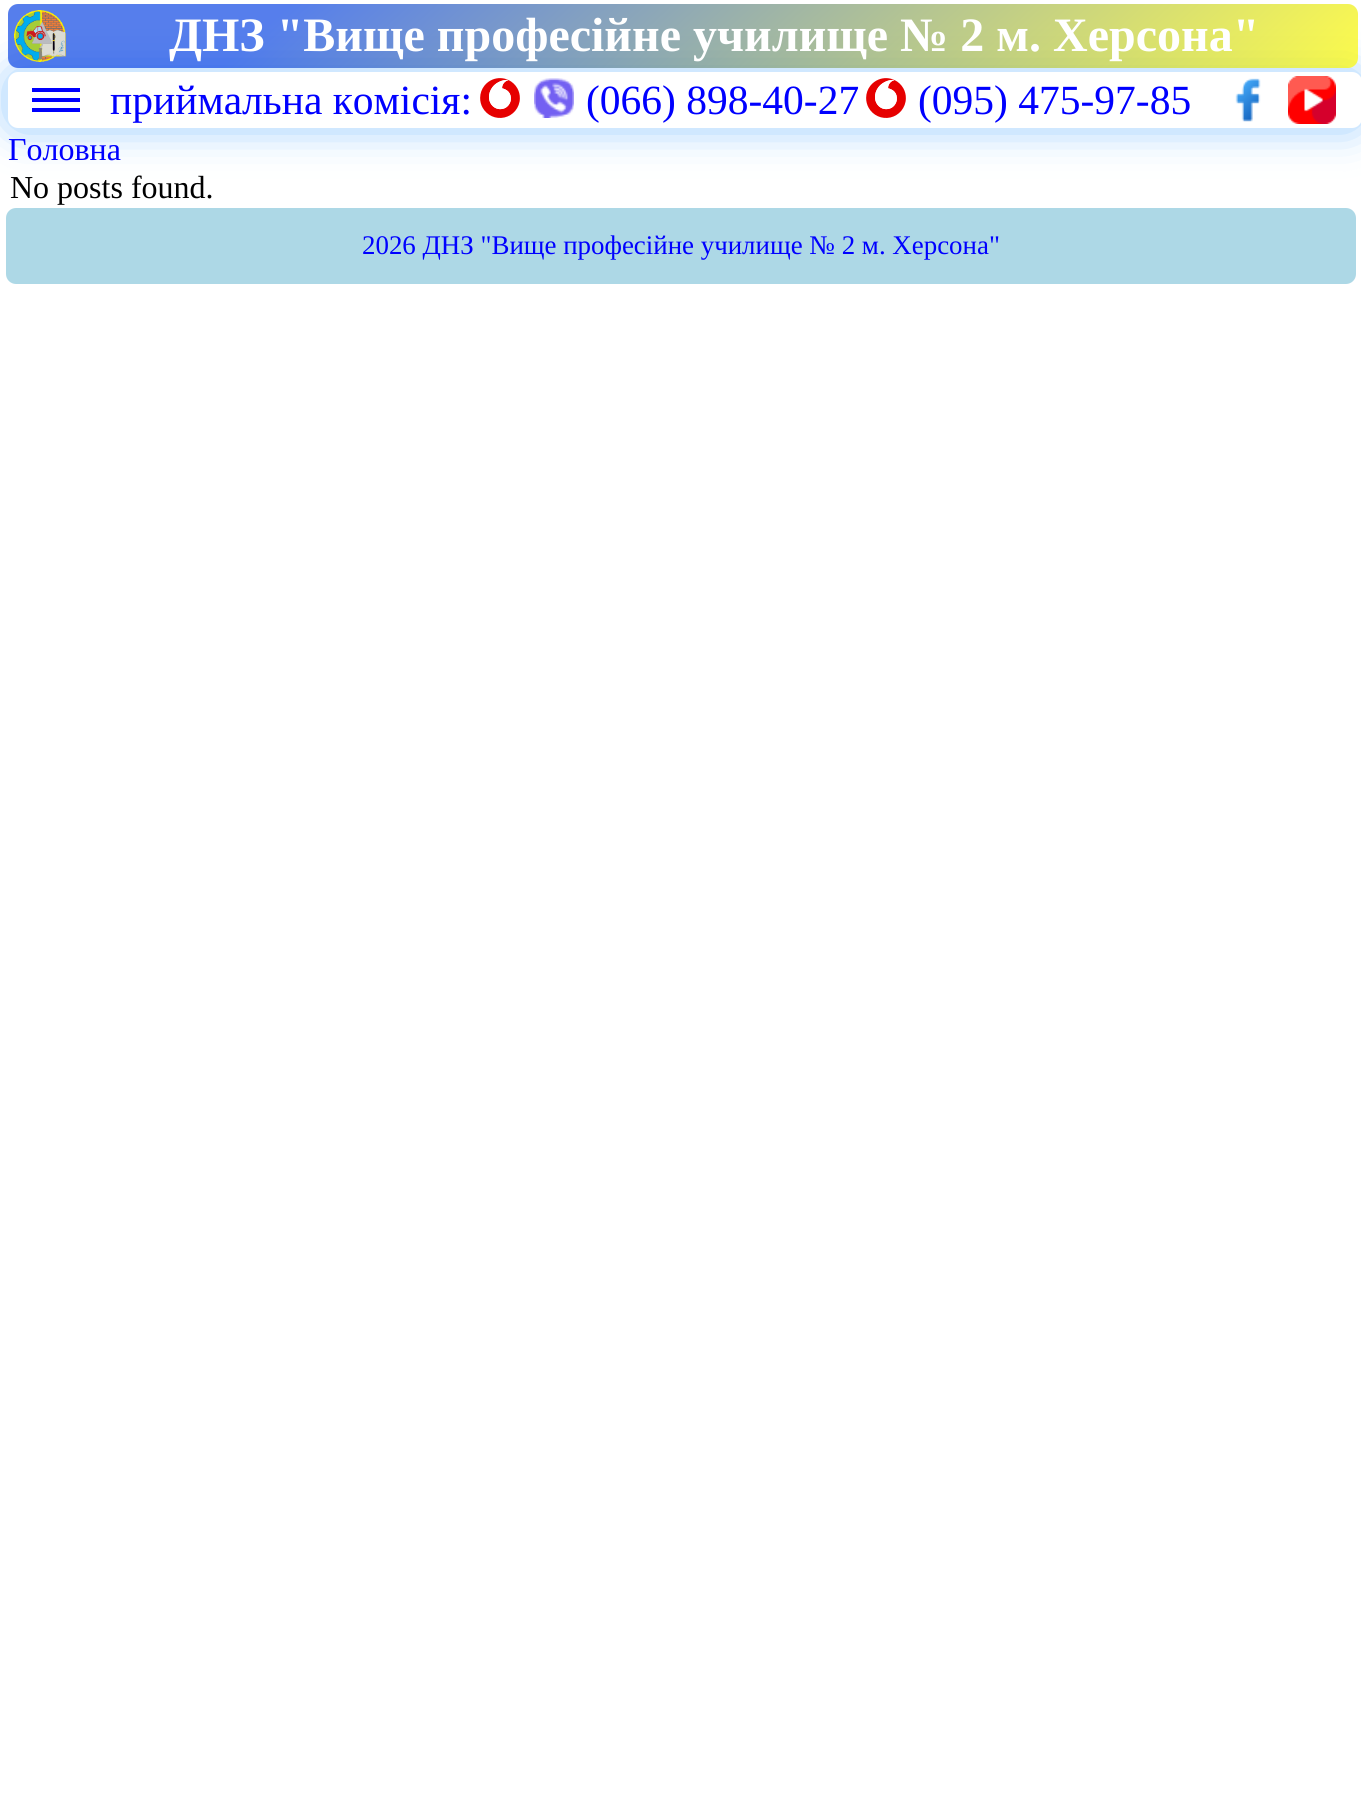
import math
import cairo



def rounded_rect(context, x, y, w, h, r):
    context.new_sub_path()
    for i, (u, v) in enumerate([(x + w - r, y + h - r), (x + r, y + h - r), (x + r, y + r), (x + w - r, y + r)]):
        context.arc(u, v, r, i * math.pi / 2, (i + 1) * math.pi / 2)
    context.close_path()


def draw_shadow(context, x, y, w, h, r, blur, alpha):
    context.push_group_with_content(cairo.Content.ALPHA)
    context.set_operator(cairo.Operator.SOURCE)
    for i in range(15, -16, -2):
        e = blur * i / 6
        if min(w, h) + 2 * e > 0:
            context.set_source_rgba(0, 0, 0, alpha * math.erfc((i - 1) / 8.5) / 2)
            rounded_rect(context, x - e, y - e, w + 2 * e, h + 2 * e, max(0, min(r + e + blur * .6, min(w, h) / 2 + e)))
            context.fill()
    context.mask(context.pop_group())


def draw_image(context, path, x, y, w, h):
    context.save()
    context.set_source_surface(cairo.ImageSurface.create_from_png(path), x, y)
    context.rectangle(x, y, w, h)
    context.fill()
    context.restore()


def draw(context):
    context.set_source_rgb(1, 1, 1)
    context.paint()
    context.set_source_rgb(2 / 255, 131 / 255, 1)
    draw_shadow(context, 12, 76, 1346, 48, 6, 22, 0.5)
    gradient = cairo.LinearGradient(365, -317, 1001, 389)
    gradient.add_color_stop_rgba(0.2, 14 / 255, 72 / 255, 228 / 255, 0.7)
    gradient.add_color_stop_rgba(1, 1, 251 / 255, 0, 0.7)
    context.set_source(gradient)
    rounded_rect(context, 8, 4, 1350, 64, 10)
    context.fill()
    draw_image(context, "images/1.png", 14, 10, 52, 52)
    context.set_source_rgb(1, 1, 1)
    rounded_rect(context, 8, 72, 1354, 56, 10)
    context.fill()
    context.set_source_rgb(0, 0, 1)
    context.rectangle(32, 98, 48, 4)
    context.fill()
    context.rectangle(32, 88, 48, 4)
    context.fill()
    context.rectangle(32, 108, 48, 4)
    context.fill()
    draw_image(context, "images/2.png", 480, 78, 40, 40)
    draw_image(context, "images/3.png", 534, 78, 40, 40)
    draw_image(context, "images/2.png", 866, 78, 40, 40)
    draw_image(context, "images/4.png", 1235, 78, 26, 44)
    draw_image(context, "images/5.png", 1288, 76, 48, 48)
    context.set_source_rgb(173 / 255, 216 / 255, 230 / 255)
    rounded_rect(context, 6, 208, 1350, 76, 10)
    context.fill()
    context.select_font_face("Liberation Serif", cairo.FontSlant.NORMAL, cairo.FontWeight.BOLD)
    context.set_font_size(48)
    context.set_source_rgb(1, 1, 1)
    context.move_to(169, 51)
    context.show_text("ДНЗ \"Вище професiйне училище № 2 м. Херсона\"")
    context.select_font_face("Liberation Serif")
    context.set_font_size(41.5)
    context.set_source_rgb(0, 0, 1)
    context.move_to(110, 114)
    context.show_text("приймальнa комiсiя:")
    context.move_to(586, 114)
    context.show_text("(066) 898-40-27")
    context.move_to(918, 114)
    context.show_text("(095) 475-97-85")
    context.set_font_size(32)
    context.move_to(8, 160)
    context.show_text("Головна")
    context.set_source_rgb(0, 0, 0)
    context.move_to(10, 198)
    context.show_text("No posts found.")
    context.set_font_size(26.9)
    context.set_source_rgb(0, 0, 1)
    context.move_to(362, 254)
    context.show_text("2026 ДНЗ \"Вище професiйне училище № 2 м. Херсона\"")


surface = cairo.ImageSurface(cairo.Format.RGB24, 1361, 1796)
context = cairo.Context(surface)
options = cairo.FontOptions()
options.set_hint_metrics(cairo.HintMetrics.OFF)
options.set_hint_style(cairo.HintStyle.NONE)
context.set_font_options(options)
context.set_miter_limit(4)
draw(context)
surface.write_to_png("out.png")
